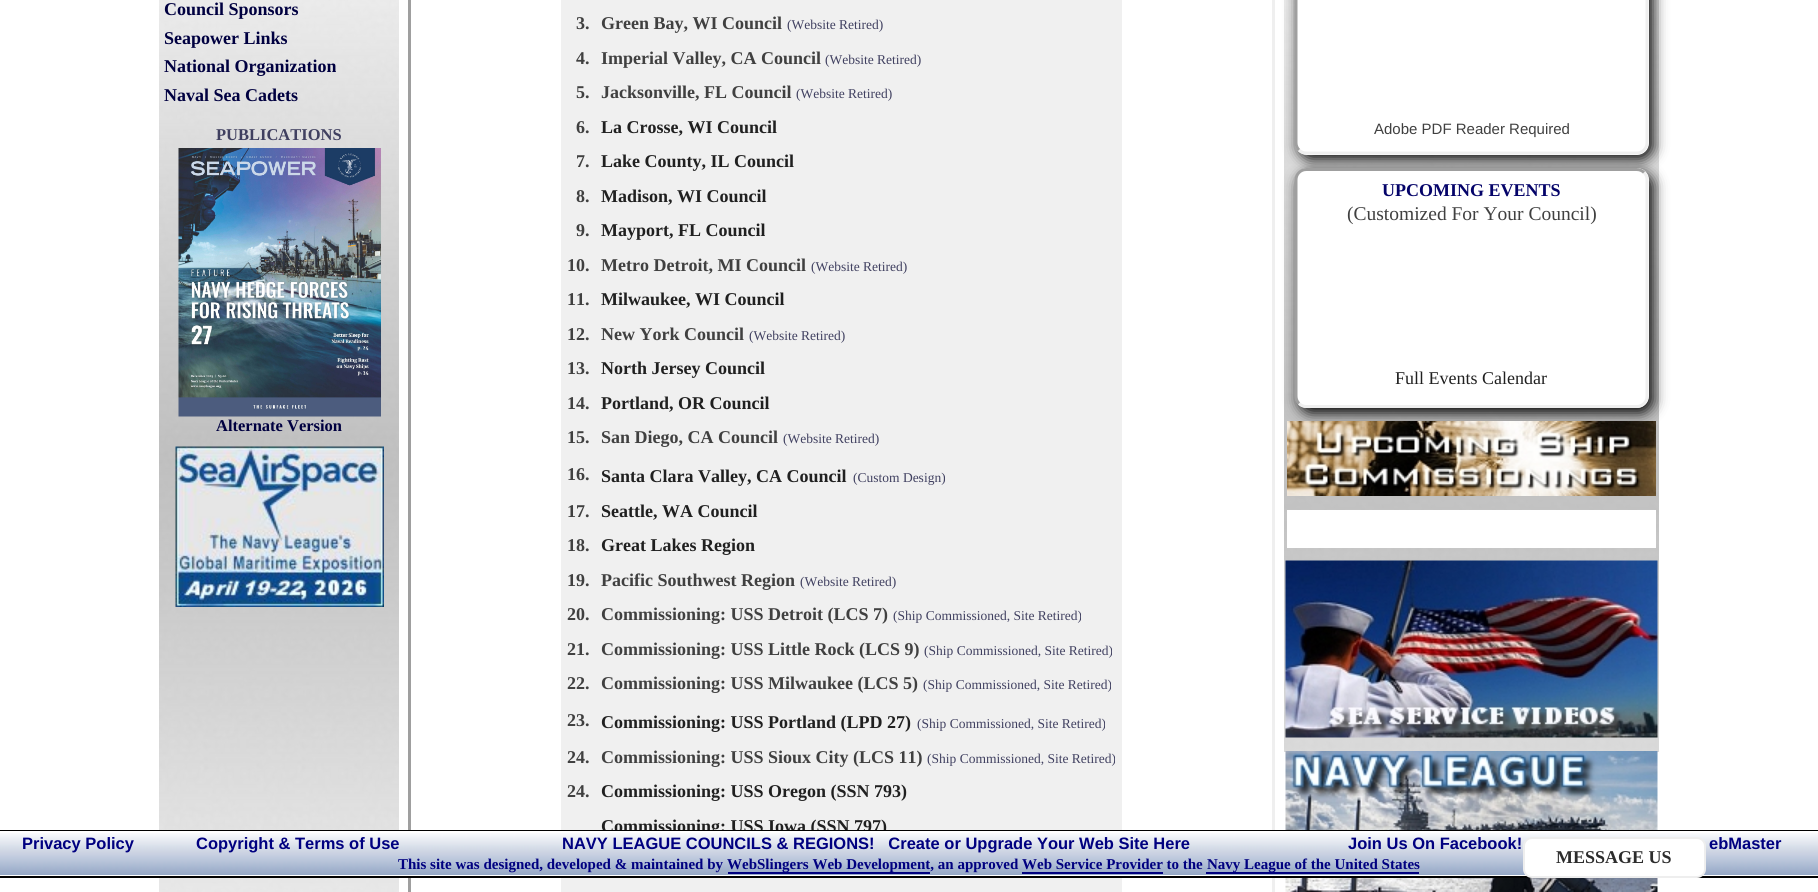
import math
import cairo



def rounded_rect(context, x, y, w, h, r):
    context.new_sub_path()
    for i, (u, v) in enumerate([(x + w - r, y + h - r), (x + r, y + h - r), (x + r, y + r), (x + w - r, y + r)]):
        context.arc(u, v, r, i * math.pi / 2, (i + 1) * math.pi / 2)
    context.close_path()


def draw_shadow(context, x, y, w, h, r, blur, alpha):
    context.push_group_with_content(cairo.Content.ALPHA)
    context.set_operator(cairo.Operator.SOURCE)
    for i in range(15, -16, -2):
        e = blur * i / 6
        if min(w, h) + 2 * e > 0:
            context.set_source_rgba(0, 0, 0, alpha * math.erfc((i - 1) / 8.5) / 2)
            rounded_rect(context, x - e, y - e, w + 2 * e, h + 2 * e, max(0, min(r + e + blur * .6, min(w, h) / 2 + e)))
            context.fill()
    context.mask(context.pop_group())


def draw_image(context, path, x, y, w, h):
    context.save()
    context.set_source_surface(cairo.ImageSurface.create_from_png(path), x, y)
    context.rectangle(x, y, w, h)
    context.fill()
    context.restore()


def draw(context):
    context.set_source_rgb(1, 1, 1)
    context.paint()
    draw_image(context, "images/1.png", 159, 0, 240, 892)
    draw_image(context, "images/2.png", 178, 148, 203, 269)
    draw_image(context, "images/3.png", 175, 446, 209, 161)
    context.set_source_rgb(239 / 255, 239 / 255, 239 / 255)
    context.new_path()
    context.move_to(1275, -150)
    context.line_to(1275, 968)
    context.line_to(1272, 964)
    context.line_to(1272, -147)
    context.close_path()
    context.fill()
    context.set_source_rgb(159 / 255, 159 / 255, 159 / 255)
    context.new_path()
    context.move_to(408, 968)
    context.line_to(408, -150)
    context.line_to(411, -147)
    context.line_to(411, 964)
    context.close_path()
    context.fill()
    context.set_source_rgb(240 / 255, 240 / 255, 240 / 255)
    context.rectangle(561, 0, 561, 892)
    context.fill()
    draw_image(context, "images/4.png", 1284, 0, 375, 752)
    context.set_source_rgb(0, 0, 0)
    draw_shadow(context, 1299, -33, 354, 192, 12, 7, 1)
    context.set_source_rgb(1, 1, 1)
    rounded_rect(context, 1295, -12, 354, 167, 12)
    context.fill()
    context.new_path()
    context.move_to(1644, -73.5)
    context.curve_to(1646, -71.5, 1647, -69, 1647, -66)
    context.line_to(1647, 142.5)
    context.curve_to(1647, 145.5, 1646, 148, 1644, 150)
    context.curve_to(1642, 152, 1639.5, 153, 1636.5, 153)
    context.line_to(1306.5, 153)
    context.curve_to(1303.5, 153, 1301, 152, 1299, 150)
    context.set_source_rgb(239 / 255, 239 / 255, 239 / 255)
    context.set_line_width(3)
    context.stroke()
    context.new_path()
    context.move_to(1299, 150)
    context.curve_to(1297, 148, 1296, 145.5, 1296, 142.5)
    context.line_to(1296, -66)
    context.curve_to(1296, -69, 1297, -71.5, 1299, -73.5)
    context.curve_to(1301, -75.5, 1303.5, -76.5, 1306.5, -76.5)
    context.line_to(1636.5, -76.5)
    context.curve_to(1639.5, -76.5, 1642, -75.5, 1644, -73.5)
    context.set_source_rgb(159 / 255, 159 / 255, 159 / 255)
    context.stroke()
    context.set_source_rgb(0, 0, 0)
    draw_shadow(context, 1299, 173, 354, 240, 12, 7, 1)
    context.set_source_rgb(1, 1, 1)
    rounded_rect(context, 1295, 168, 354, 240, 12)
    context.fill()
    context.new_path()
    context.move_to(1644, 172.5)
    context.curve_to(1646, 174.5, 1647, 177, 1647, 180)
    context.line_to(1647, 396)
    context.curve_to(1647, 399, 1646, 401.5, 1644, 403.5)
    context.curve_to(1642, 405.5, 1639.5, 406.5, 1636.5, 406.5)
    context.line_to(1306.5, 406.5)
    context.curve_to(1303.5, 406.5, 1301, 405.5, 1299, 403.5)
    context.set_source_rgb(239 / 255, 239 / 255, 239 / 255)
    context.stroke()
    context.new_path()
    context.move_to(1299, 403.5)
    context.curve_to(1297, 401.5, 1296, 399, 1296, 396)
    context.line_to(1296, 180)
    context.curve_to(1296, 177, 1297, 174.5, 1299, 172.5)
    context.curve_to(1301, 170.5, 1303.5, 169.5, 1306.5, 169.5)
    context.line_to(1636.5, 169.5)
    context.curve_to(1639.5, 169.5, 1642, 170.5, 1644, 172.5)
    context.set_source_rgb(159 / 255, 159 / 255, 159 / 255)
    context.stroke()
    draw_image(context, "images/5.png", 1287, 421, 369, 75)
    context.set_source_rgb(1, 1, 1)
    context.rectangle(1287, 510, 369, 38)
    context.fill()
    draw_image(context, "images/6.png", 1285, 560, 373, 178)
    draw_image(context, "images/7.png", 1285, 751, 373, 141)
    context.rectangle(159, 875, 1499, 1)
    context.fill()
    context.set_source_rgb(0, 0, 0)
    context.rectangle(0, 876, 1818, 2)
    context.fill()
    context.select_font_face("Liberation Serif", cairo.FontSlant.NORMAL, cairo.FontWeight.BOLD)
    context.set_font_size(18)
    context.set_source_rgb(0, 0, 64 / 255)
    context.move_to(164, 15)
    context.show_text("Council Sponsors")
    context.move_to(164, 44)
    context.show_text("Seapower Links")
    context.move_to(164, 72)
    context.show_text("National Organization")
    context.move_to(164, 101)
    context.show_text("Naval Sea Cadets")
    context.set_font_size(16.5)
    context.set_source_rgb(64 / 255, 64 / 255, 96 / 255)
    context.move_to(216, 140)
    context.show_text("PUBLICATIONS")
    context.set_source_rgb(0, 0, 64 / 255)
    context.move_to(216, 431)
    context.show_text("Alternate Version")
    context.set_font_size(18)
    context.set_source_rgb(64 / 255, 64 / 255, 64 / 255)
    context.move_to(576, 29)
    context.show_text("3.")
    context.move_to(601, 29)
    context.show_text("Green Bay, WI Council")
    context.select_font_face("Liberation Serif")
    context.set_font_size(13.5)
    context.set_source_rgb(64 / 255, 64 / 255, 96 / 255)
    context.move_to(787, 29)
    context.show_text("(Website Retired)")
    context.select_font_face("Liberation Serif", cairo.FontSlant.NORMAL, cairo.FontWeight.BOLD)
    context.set_font_size(18)
    context.set_source_rgb(64 / 255, 64 / 255, 64 / 255)
    context.move_to(576, 64)
    context.show_text("4.")
    context.move_to(601, 64)
    context.show_text("Imperial Valley, CA Council")
    context.select_font_face("Liberation Serif")
    context.set_font_size(13.5)
    context.set_source_rgb(64 / 255, 64 / 255, 96 / 255)
    context.move_to(825, 64)
    context.show_text("(Website Retired)")
    context.select_font_face("Liberation Serif", cairo.FontSlant.NORMAL, cairo.FontWeight.BOLD)
    context.set_font_size(18)
    context.set_source_rgb(64 / 255, 64 / 255, 64 / 255)
    context.move_to(576, 98)
    context.show_text("5.")
    context.move_to(601, 98)
    context.show_text("Jacksonville, FL Council")
    context.select_font_face("Liberation Serif")
    context.set_font_size(13.5)
    context.set_source_rgb(64 / 255, 64 / 255, 96 / 255)
    context.move_to(796, 98)
    context.show_text("(Website Retired)")
    context.select_font_face("Liberation Serif", cairo.FontSlant.NORMAL, cairo.FontWeight.BOLD)
    context.set_font_size(18)
    context.set_source_rgb(64 / 255, 64 / 255, 64 / 255)
    context.move_to(576, 133)
    context.show_text("6.")
    context.set_source_rgb(32 / 255, 32 / 255, 32 / 255)
    context.move_to(601, 133)
    context.show_text("La Crosse, WI Council")
    context.set_source_rgb(64 / 255, 64 / 255, 64 / 255)
    context.move_to(576, 167)
    context.show_text("7.")
    context.set_source_rgb(32 / 255, 32 / 255, 32 / 255)
    context.move_to(601, 167)
    context.show_text("Lake County, IL Council")
    context.set_source_rgb(64 / 255, 64 / 255, 64 / 255)
    context.move_to(576, 202)
    context.show_text("8.")
    context.set_source_rgb(32 / 255, 32 / 255, 32 / 255)
    context.move_to(601, 202)
    context.show_text("Madison, WI Council")
    context.set_source_rgb(64 / 255, 64 / 255, 64 / 255)
    context.move_to(576, 236)
    context.show_text("9.")
    context.set_source_rgb(32 / 255, 32 / 255, 32 / 255)
    context.move_to(601, 236)
    context.show_text("Mayport, FL Council")
    context.set_source_rgb(64 / 255, 64 / 255, 64 / 255)
    context.move_to(567, 271)
    context.show_text("10.")
    context.move_to(601, 271)
    context.show_text("Metro Detroit, MI Council")
    context.select_font_face("Liberation Serif")
    context.set_font_size(13.5)
    context.set_source_rgb(64 / 255, 64 / 255, 96 / 255)
    context.move_to(811, 271)
    context.show_text("(Website Retired)")
    context.select_font_face("Liberation Serif", cairo.FontSlant.NORMAL, cairo.FontWeight.BOLD)
    context.set_font_size(18)
    context.set_source_rgb(64 / 255, 64 / 255, 64 / 255)
    context.move_to(567, 305)
    context.show_text("11.")
    context.set_source_rgb(32 / 255, 32 / 255, 32 / 255)
    context.move_to(601, 305)
    context.show_text("Milwaukee, WI Council")
    context.set_source_rgb(64 / 255, 64 / 255, 64 / 255)
    context.move_to(567, 340)
    context.show_text("12.")
    context.move_to(601, 340)
    context.show_text("New York Council")
    context.select_font_face("Liberation Serif")
    context.set_font_size(13.5)
    context.set_source_rgb(64 / 255, 64 / 255, 96 / 255)
    context.move_to(749, 340)
    context.show_text("(Website Retired)")
    context.select_font_face("Liberation Serif", cairo.FontSlant.NORMAL, cairo.FontWeight.BOLD)
    context.set_font_size(18)
    context.set_source_rgb(64 / 255, 64 / 255, 64 / 255)
    context.move_to(567, 374)
    context.show_text("13.")
    context.set_source_rgb(32 / 255, 32 / 255, 32 / 255)
    context.move_to(601, 374)
    context.show_text("North Jersey Council")
    context.set_source_rgb(64 / 255, 64 / 255, 64 / 255)
    context.move_to(567, 409)
    context.show_text("14.")
    context.set_source_rgb(32 / 255, 32 / 255, 32 / 255)
    context.move_to(601, 409)
    context.show_text("Portland, OR Council")
    context.set_source_rgb(64 / 255, 64 / 255, 64 / 255)
    context.move_to(567, 443)
    context.show_text("15.")
    context.move_to(601, 443)
    context.show_text("San Diego, CA Council")
    context.select_font_face("Liberation Serif")
    context.set_font_size(13.5)
    context.set_source_rgb(64 / 255, 64 / 255, 96 / 255)
    context.move_to(783, 443)
    context.show_text("(Website Retired)")
    context.select_font_face("Liberation Serif", cairo.FontSlant.NORMAL, cairo.FontWeight.BOLD)
    context.set_font_size(18)
    context.set_source_rgb(64 / 255, 64 / 255, 64 / 255)
    context.move_to(567, 480)
    context.show_text("16.")
    context.set_source_rgb(32 / 255, 32 / 255, 32 / 255)
    context.move_to(601, 482)
    context.show_text("Santa Clara Valley, CA Council")
    context.select_font_face("Liberation Serif")
    context.set_font_size(13.5)
    context.set_source_rgb(64 / 255, 64 / 255, 96 / 255)
    context.move_to(853, 482)
    context.show_text("(Custom Design)")
    context.select_font_face("Liberation Serif", cairo.FontSlant.NORMAL, cairo.FontWeight.BOLD)
    context.set_font_size(18)
    context.set_source_rgb(64 / 255, 64 / 255, 64 / 255)
    context.move_to(567, 517)
    context.show_text("17.")
    context.set_source_rgb(32 / 255, 32 / 255, 32 / 255)
    context.move_to(601, 517)
    context.show_text("Seattle, WA Council")
    context.set_source_rgb(64 / 255, 64 / 255, 64 / 255)
    context.move_to(567, 551)
    context.show_text("18.")
    context.set_source_rgb(32 / 255, 32 / 255, 32 / 255)
    context.move_to(601, 551)
    context.show_text("Great Lakes Region")
    context.set_source_rgb(64 / 255, 64 / 255, 64 / 255)
    context.move_to(567, 586)
    context.show_text("19.")
    context.move_to(601, 586)
    context.show_text("Pacific Southwest Region")
    context.select_font_face("Liberation Serif")
    context.set_font_size(13.5)
    context.set_source_rgb(64 / 255, 64 / 255, 96 / 255)
    context.move_to(800, 586)
    context.show_text("(Website Retired)")
    context.select_font_face("Liberation Serif", cairo.FontSlant.NORMAL, cairo.FontWeight.BOLD)
    context.set_font_size(18)
    context.set_source_rgb(64 / 255, 64 / 255, 64 / 255)
    context.move_to(567, 620)
    context.show_text("20.")
    context.move_to(601, 620)
    context.show_text("Commissioning: USS Detroit (LCS 7)")
    context.select_font_face("Liberation Serif")
    context.set_font_size(13.5)
    context.set_source_rgb(64 / 255, 64 / 255, 96 / 255)
    context.move_to(893, 620)
    context.show_text("(Ship Commissioned, Site Retired)")
    context.select_font_face("Liberation Serif", cairo.FontSlant.NORMAL, cairo.FontWeight.BOLD)
    context.set_font_size(18)
    context.set_source_rgb(64 / 255, 64 / 255, 64 / 255)
    context.move_to(567, 655)
    context.show_text("21.")
    context.move_to(601, 655)
    context.show_text("Commissioning: USS Little Rock (LCS 9)")
    context.select_font_face("Liberation Serif")
    context.set_font_size(13.5)
    context.set_source_rgb(64 / 255, 64 / 255, 96 / 255)
    context.move_to(924, 655)
    context.show_text("(Ship Commissioned, Site Retired)")
    context.select_font_face("Liberation Serif", cairo.FontSlant.NORMAL, cairo.FontWeight.BOLD)
    context.set_font_size(18)
    context.set_source_rgb(64 / 255, 64 / 255, 64 / 255)
    context.move_to(567, 689)
    context.show_text("22.")
    context.move_to(601, 689)
    context.show_text("Commissioning: USS Milwaukee (LCS 5)")
    context.select_font_face("Liberation Serif")
    context.set_font_size(13.5)
    context.set_source_rgb(64 / 255, 64 / 255, 96 / 255)
    context.move_to(923, 689)
    context.show_text("(Ship Commissioned, Site Retired)")
    context.select_font_face("Liberation Serif", cairo.FontSlant.NORMAL, cairo.FontWeight.BOLD)
    context.set_font_size(18)
    context.set_source_rgb(64 / 255, 64 / 255, 64 / 255)
    context.move_to(567, 726)
    context.show_text("23.")
    context.set_source_rgb(32 / 255, 32 / 255, 32 / 255)
    context.move_to(601, 728)
    context.show_text("Commissioning: USS Portland (LPD 27)")
    context.select_font_face("Liberation Serif")
    context.set_font_size(13.5)
    context.set_source_rgb(64 / 255, 64 / 255, 96 / 255)
    context.move_to(917, 728)
    context.show_text("(Ship Commissioned, Site Retired)")
    context.select_font_face("Liberation Serif", cairo.FontSlant.NORMAL, cairo.FontWeight.BOLD)
    context.set_font_size(18)
    context.set_source_rgb(64 / 255, 64 / 255, 64 / 255)
    context.move_to(567, 763)
    context.show_text("24.")
    context.move_to(601, 763)
    context.show_text("Commissioning: USS Sioux City (LCS 11)")
    context.select_font_face("Liberation Serif")
    context.set_font_size(13.5)
    context.set_source_rgb(64 / 255, 64 / 255, 96 / 255)
    context.move_to(927, 763)
    context.show_text("(Ship Commissioned, Site Retired)")
    context.select_font_face("Liberation Serif", cairo.FontSlant.NORMAL, cairo.FontWeight.BOLD)
    context.set_font_size(18)
    context.set_source_rgb(64 / 255, 64 / 255, 64 / 255)
    context.move_to(567, 797)
    context.show_text("24.")
    context.set_source_rgb(32 / 255, 32 / 255, 32 / 255)
    context.move_to(601, 797)
    context.show_text("Commissioning: USS Oregon (SSN 793)")
    context.move_to(601, 832)
    context.show_text("Commissioning: USS Iowa (SSN 797)")
    context.select_font_face("Liberation Sans")
    context.set_font_size(15)
    context.set_source_rgb(64 / 255, 64 / 255, 64 / 255)
    context.move_to(1374, 134)
    context.show_text("Adobe PDF Reader Required")
    context.select_font_face("Liberation Serif", cairo.FontSlant.NORMAL, cairo.FontWeight.BOLD)
    context.set_font_size(18)
    context.set_source_rgb(4 / 255, 3 / 255, 105 / 255)
    context.move_to(1382, 196)
    context.show_text("UPCOMING EVENTS")
    context.select_font_face("Liberation Serif")
    context.set_font_size(19.5)
    context.set_source_rgb(64 / 255, 64 / 255, 64 / 255)
    context.move_to(1347, 220)
    context.show_text("(Customized For Your Council)")
    context.set_font_size(18)
    context.set_source_rgb(32 / 255, 32 / 255, 32 / 255)
    context.move_to(1395, 384)
    context.show_text("Full Events Calendar")
    draw_image(context, "images/8.png", 0, 833, 1818, 42)
    context.set_source_rgb(0, 0, 0)
    context.rectangle(0, 830, 1818, 1)
    context.fill()
    context.set_source_rgb(1, 1, 1)
    context.rectangle(159, 831, 1499, 2)
    context.fill()
    context.select_font_face("Liberation Sans", cairo.FontSlant.NORMAL, cairo.FontWeight.BOLD)
    context.set_font_size(16.5)
    context.set_source_rgb(0, 0, 128 / 255)
    context.move_to(22, 849)
    context.show_text("Privacy Policy")
    context.move_to(196, 849)
    context.show_text("Copyright & Terms of Use")
    context.move_to(562, 849)
    context.show_text("NAVY LEAGUE COUNCILS & REGIONS!   Create or Upgrade Your Web Site Here")
    context.move_to(1348, 849)
    context.show_text("Join Us On Facebook!")
    context.move_to(1709, 849)
    context.show_text("ebMaster")
    context.select_font_face("Liberation Serif", cairo.FontSlant.NORMAL, cairo.FontWeight.BOLD)
    context.set_font_size(15)
    context.move_to(398, 869)
    context.show_text("This site was designed, developed & maintained by")
    context.rectangle(728, 872, 202, 2)
    context.fill()
    context.move_to(727, 869)
    context.show_text("WebSlingers Web Development, an approved Web Service Provider to the")
    context.rectangle(1022, 872, 141, 2)
    context.fill()
    context.rectangle(1206, 872, 213, 2)
    context.fill()
    context.move_to(1207, 869)
    context.show_text("Navy League of the United States")
    context.set_source_rgb(1, 1, 1)
    rounded_rect(context, 1524, 838, 181, 39, 8)
    context.fill_preserve()
    context.set_source_rgb(238 / 255, 238 / 255, 238 / 255)
    context.set_line_width(2)
    context.stroke()
    context.set_font_size(18)
    context.set_source_rgb(44 / 255, 44 / 255, 44 / 255)
    context.move_to(1556, 863)
    context.show_text("MESSAGE US")


surface = cairo.ImageSurface(cairo.Format.RGB24, 1818, 892)
context = cairo.Context(surface)
options = cairo.FontOptions()
options.set_hint_metrics(cairo.HintMetrics.OFF)
options.set_hint_style(cairo.HintStyle.NONE)
context.set_font_options(options)
context.set_miter_limit(4)
draw(context)
surface.write_to_png("out.png")
